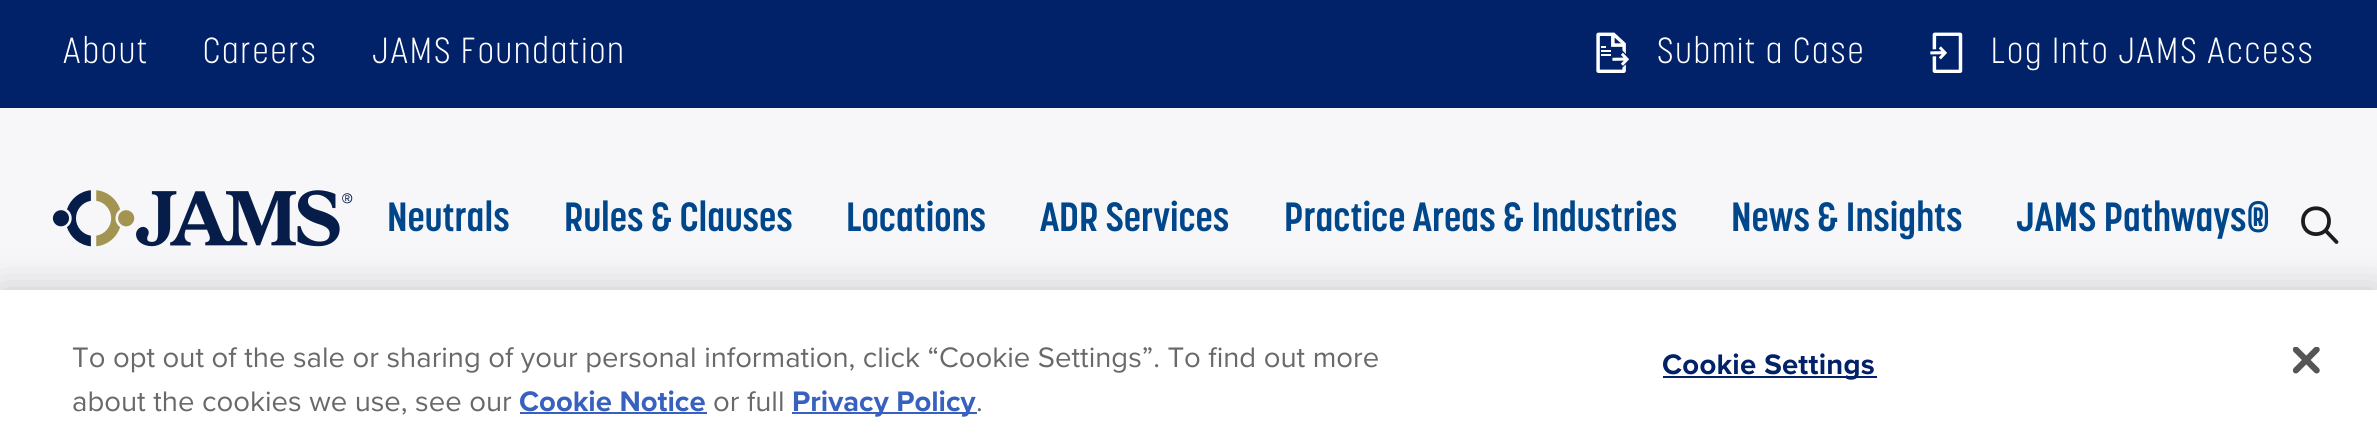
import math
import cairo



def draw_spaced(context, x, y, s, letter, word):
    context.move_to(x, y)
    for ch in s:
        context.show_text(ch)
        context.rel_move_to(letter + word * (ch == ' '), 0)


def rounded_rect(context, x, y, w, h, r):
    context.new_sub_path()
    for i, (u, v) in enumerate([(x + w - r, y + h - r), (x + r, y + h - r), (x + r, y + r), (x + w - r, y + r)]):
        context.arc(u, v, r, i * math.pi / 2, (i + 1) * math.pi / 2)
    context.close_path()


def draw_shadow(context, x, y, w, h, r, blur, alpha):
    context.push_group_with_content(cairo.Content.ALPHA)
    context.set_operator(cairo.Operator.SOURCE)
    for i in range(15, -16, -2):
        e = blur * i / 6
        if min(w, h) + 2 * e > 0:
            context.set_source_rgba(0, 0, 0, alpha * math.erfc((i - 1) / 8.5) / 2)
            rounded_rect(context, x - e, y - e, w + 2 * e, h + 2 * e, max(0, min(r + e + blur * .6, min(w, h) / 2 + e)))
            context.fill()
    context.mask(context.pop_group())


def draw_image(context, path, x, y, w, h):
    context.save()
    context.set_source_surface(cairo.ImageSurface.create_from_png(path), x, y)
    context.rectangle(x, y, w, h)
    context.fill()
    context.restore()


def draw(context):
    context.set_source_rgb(247 / 255, 247 / 255, 249 / 255)
    context.paint()
    context.set_source_rgb(1 / 255, 33 / 255, 104 / 255)
    context.rectangle(0, 0, 2377, 108)
    context.fill()
    draw_image(context, "images/1.png", 1596, 32, 34, 41)
    draw_image(context, "images/2.png", 1930, 32, 33, 41)
    draw_image(context, "images/3.png", 52, 190, 301, 57)
    context.new_path()
    context.move_to(2336.5, 242)
    context.line_to(2325.5, 230.5)
    context.move_to(2329, 221)
    context.curve_to(2329, 238.5, 2303, 238.5, 2303, 221)
    context.curve_to(2303, 204, 2329, 204, 2329, 221)
    context.close_path()
    context.set_source_rgb(28 / 255, 28 / 255, 28 / 255)
    context.set_line_width(3.8)
    context.set_line_cap(cairo.LineCap.ROUND)
    context.set_line_join(cairo.LineJoin.ROUND)
    context.stroke()
    context.set_source_rgb(0, 0, 0)
    draw_shadow(context, 0, 290, 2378, 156, 0, 20, 0.2)
    context.set_source_rgb(1, 1, 1)
    context.rectangle(0, 290, 2377, 154)
    context.fill()
    context.set_source_rgb(56 / 255, 96 / 255, 190 / 255)
    context.rectangle(520, 412, 187, 2)
    context.fill()
    context.rectangle(792, 412, 185, 2)
    context.fill()
    context.set_source_rgb(1 / 255, 33 / 255, 104 / 255)
    context.rectangle(1663, 376, 214, 2)
    context.fill()
    draw_image(context, "images/4.png", 2293, 347, 27, 27)
    context.select_font_face("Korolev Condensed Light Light")
    context.set_font_size(36)
    context.set_source_rgb(1, 1, 1)
    draw_spaced(context, 63, 63, "About", 2.25, 0)
    draw_spaced(context, 203, 63, "Careers", 2.25, 0)
    draw_spaced(context, 372, 63, "JAMS Foundation", 2.25, 0)
    draw_spaced(context, 1657, 63, "Submit a Case", 2.25, 0)
    draw_spaced(context, 1991, 63, "Log Into JAMS Access", 2.25, 0)
    context.select_font_face("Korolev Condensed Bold", cairo.FontSlant.NORMAL, cairo.FontWeight.BOLD)
    context.set_font_size(40.5)
    context.set_source_rgb(0, 70 / 255, 139 / 255)
    context.move_to(387, 231)
    context.show_text("Neutrals")
    context.move_to(564, 231)
    context.show_text("Rules & Clauses")
    context.move_to(846, 231)
    context.show_text("Locations")
    context.move_to(1040, 231)
    context.show_text("ADR Services")
    context.move_to(1284, 231)
    context.show_text("Practice Areas & Industries")
    context.move_to(1731, 231)
    context.show_text("News & Insights")
    context.move_to(2016, 231)
    context.show_text("JAMS Pathways®")
    context.select_font_face("Proxima Nova")
    context.set_font_size(29.25)
    context.set_source_rgb(105 / 255, 105 / 255, 105 / 255)
    context.move_to(72, 367)
    context.show_text("To opt out of the sale or sharing of your personal information, click “Cookie Settings”. To find out more")
    context.move_to(72, 411)
    context.show_text("about the cookies we use, see our")
    context.select_font_face("Proxima Nova", cairo.FontSlant.NORMAL, cairo.FontWeight.BOLD)
    context.set_source_rgb(56 / 255, 96 / 255, 190 / 255)
    context.move_to(519, 411)
    context.show_text("Cookie Notice")
    context.select_font_face("Proxima Nova")
    context.set_source_rgb(105 / 255, 105 / 255, 105 / 255)
    context.move_to(713, 411)
    context.show_text("or full")
    context.select_font_face("Proxima Nova", cairo.FontSlant.NORMAL, cairo.FontWeight.BOLD)
    context.set_source_rgb(56 / 255, 96 / 255, 190 / 255)
    context.move_to(792, 411)
    context.show_text("Privacy Policy")
    context.select_font_face("Proxima Nova")
    context.set_source_rgb(105 / 255, 105 / 255, 105 / 255)
    context.move_to(976, 411)
    context.show_text(".")
    context.select_font_face("Proxima Nova", cairo.FontSlant.NORMAL, cairo.FontWeight.BOLD)
    context.set_source_rgb(1 / 255, 33 / 255, 104 / 255)
    draw_spaced(context, 1662, 374, "Cookie Settings", 0.25, 0)


surface = cairo.ImageSurface(cairo.Format.RGB24, 2377, 444)
context = cairo.Context(surface)
options = cairo.FontOptions()
options.set_hint_metrics(cairo.HintMetrics.OFF)
options.set_hint_style(cairo.HintStyle.NONE)
context.set_font_options(options)
context.set_miter_limit(4)
draw(context)
surface.write_to_png("out.png")
